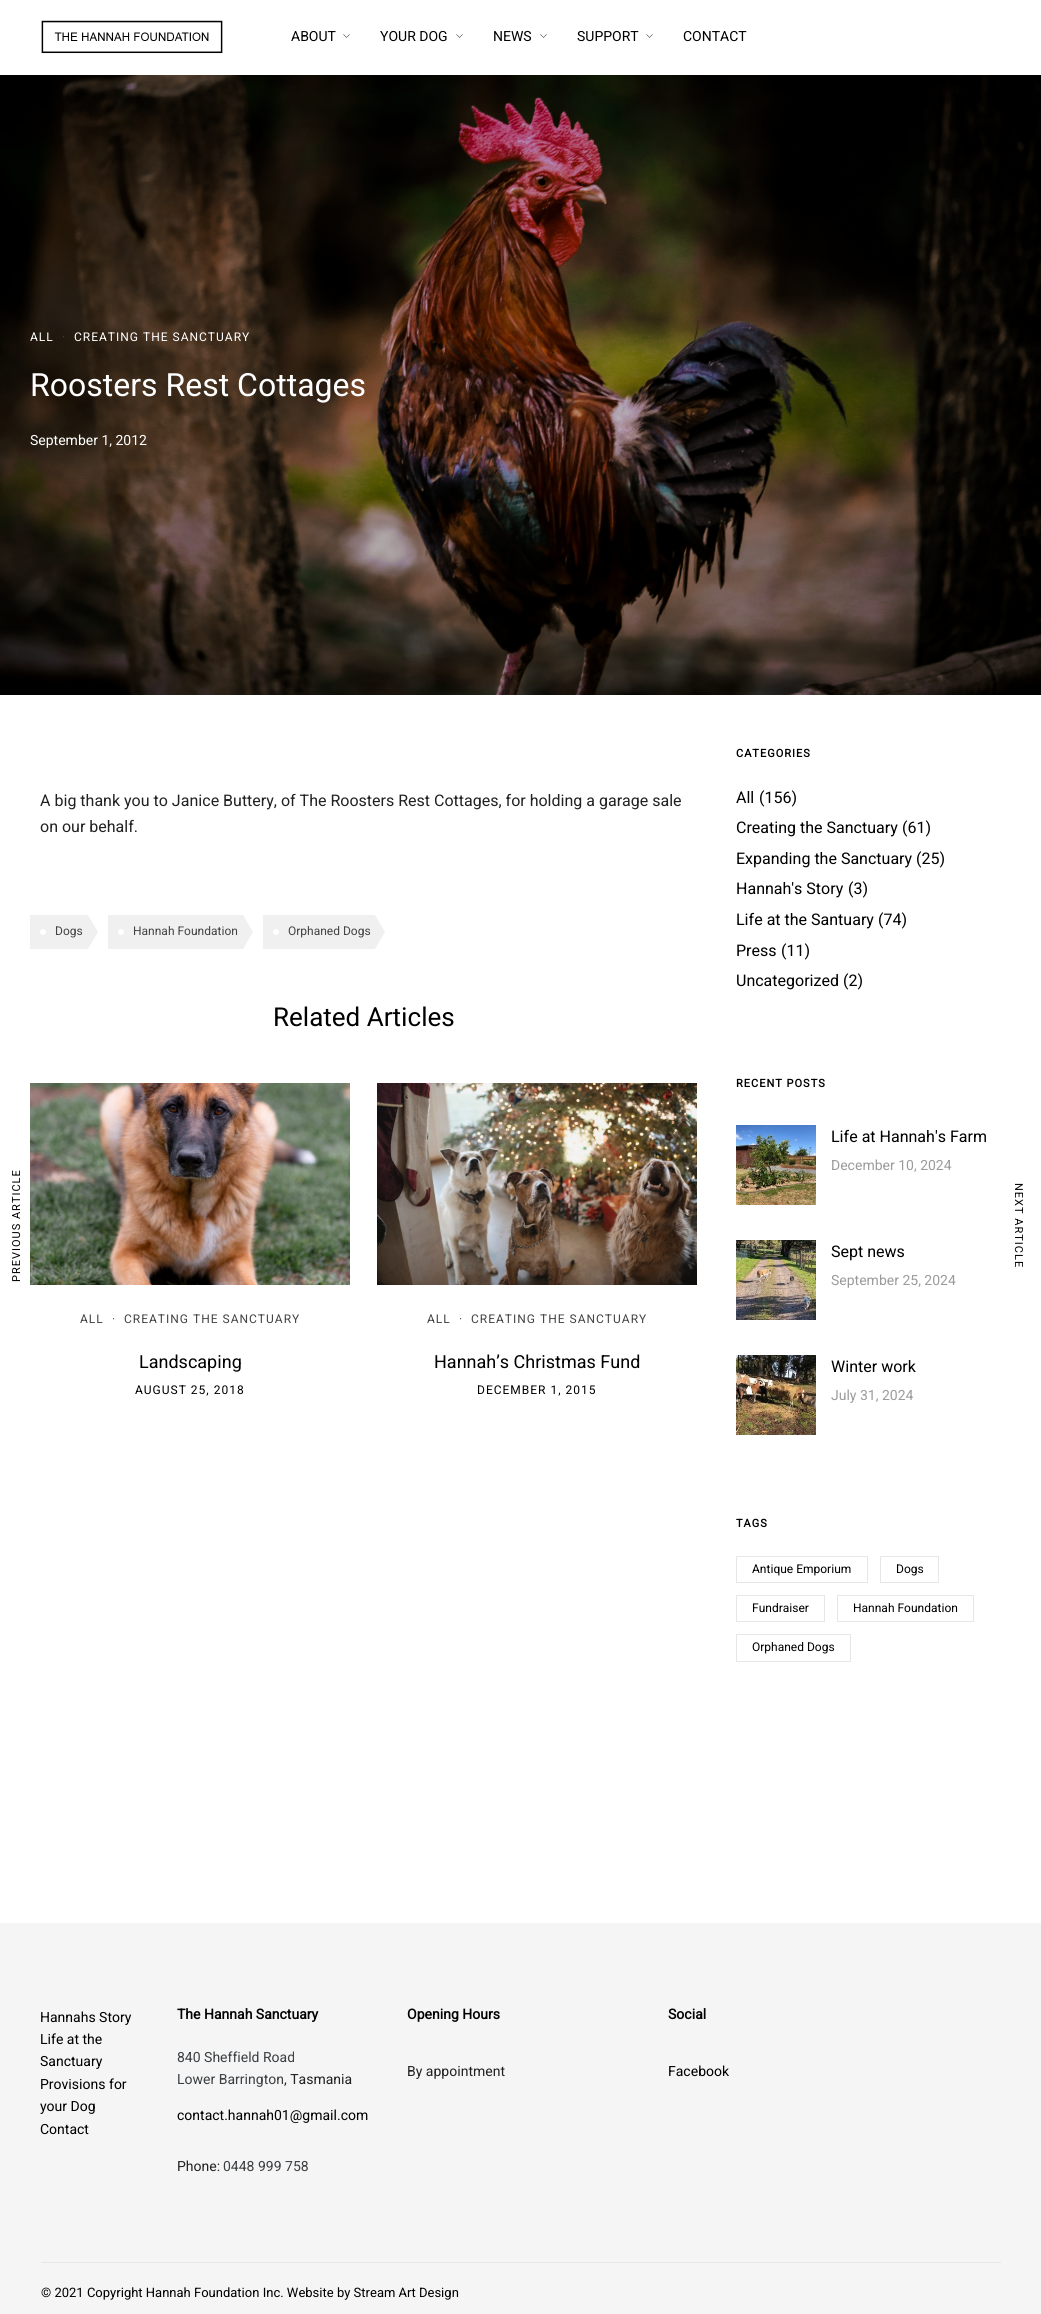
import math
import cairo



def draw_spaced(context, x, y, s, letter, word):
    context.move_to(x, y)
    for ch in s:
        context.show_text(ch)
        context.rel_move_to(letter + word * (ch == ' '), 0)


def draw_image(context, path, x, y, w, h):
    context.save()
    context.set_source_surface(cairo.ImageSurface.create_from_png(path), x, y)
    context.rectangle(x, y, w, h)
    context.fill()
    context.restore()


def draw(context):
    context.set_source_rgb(1, 1, 1)
    context.paint()
    draw_image(context, "images/1.png", 41, 20, 182, 34)
    draw_image(context, "images/2.png", 343, 34, 7, 4)
    draw_image(context, "images/2.png", 456, 34, 7, 4)
    draw_image(context, "images/2.png", 540, 34, 7, 4)
    draw_image(context, "images/2.png", 646, 34, 7, 4)
    draw_image(context, "images/3.png", 0, 75, 1041, 620)
    draw_image(context, "images/4.png", 736, 1125, 80, 80)
    draw_image(context, "images/5.png", 736, 1240, 80, 80)
    draw_image(context, "images/6.png", 736, 1355, 80, 80)
    context.rectangle(736.5, 1556.5, 131, 26)
    context.set_source_rgb(231 / 255, 231 / 255, 231 / 255)
    context.set_line_width(1)
    context.stroke()
    context.rectangle(880.5, 1556.5, 58, 26)
    context.stroke()
    context.rectangle(736.5, 1595.5, 88, 26)
    context.stroke()
    context.rectangle(837.5, 1595.5, 136, 26)
    context.stroke()
    context.rectangle(736.5, 1634.5, 114, 27)
    context.stroke()
    context.set_source_rgb(240 / 255, 240 / 255, 240 / 255)
    context.rectangle(30, 915, 58, 34)
    context.fill()
    context.set_source_rgb(1, 1, 1)
    context.arc(43, 932, 3, 0, 2 * math.pi)
    context.fill()
    context.set_source_rgb(240 / 255, 240 / 255, 240 / 255)
    context.new_path()
    context.move_to(88, 949)
    context.line_to(88, 915)
    context.line_to(98, 932)
    context.close_path()
    context.fill()
    context.rectangle(108, 915, 135, 34)
    context.fill()
    context.set_source_rgb(1, 1, 1)
    context.arc(121, 932, 3, 0, 2 * math.pi)
    context.fill()
    context.set_source_rgb(240 / 255, 240 / 255, 240 / 255)
    context.new_path()
    context.move_to(243, 949)
    context.line_to(243, 915)
    context.line_to(253, 932)
    context.close_path()
    context.fill()
    context.rectangle(263, 915, 112, 34)
    context.fill()
    context.set_source_rgb(1, 1, 1)
    context.arc(276, 932, 3, 0, 2 * math.pi)
    context.fill()
    context.set_source_rgb(240 / 255, 240 / 255, 240 / 255)
    context.new_path()
    context.move_to(375, 949)
    context.line_to(375, 915)
    context.line_to(385, 932)
    context.close_path()
    context.fill()
    draw_image(context, "images/7.png", 30, 1083, 320, 202)
    draw_image(context, "images/8.png", 377, 1083, 320, 202)
    context.set_source_rgb(245 / 255, 245 / 255, 245 / 255)
    context.rectangle(0, 1923, 1041, 391)
    context.fill()
    context.set_source_rgb(231 / 255, 231 / 255, 231 / 255)
    context.rectangle(41, 2262, 960, 1)
    context.fill()
    context.select_font_face("Heebo")
    context.set_font_size(14)
    context.set_source_rgb(0, 0, 0)
    context.move_to(291, 41)
    context.show_text("ABOUT")
    context.move_to(380, 41)
    context.show_text("YOUR DOG")
    context.move_to(493, 41)
    context.show_text("NEWS")
    context.move_to(577, 41)
    context.show_text("SUPPORT")
    context.move_to(683, 41)
    context.show_text("CONTACT")
    context.set_font_size(12)
    context.set_source_rgb(1, 1, 1)
    draw_spaced(context, 30, 341, "ALL", 1, 0)
    context.set_source_rgb(68 / 255, 68 / 255, 68 / 255)
    draw_spaced(context, 62, 341, "·", 1, 0)
    context.set_source_rgb(1, 1, 1)
    draw_spaced(context, 74, 341, "CREATING THE SANCTUARY", 1, 0)
    context.set_font_size(32)
    context.move_to(30, 396)
    context.show_text("Roosters Rest Cottages")
    context.set_font_size(14)
    context.move_to(30, 445)
    context.show_text("September 1, 2012")
    context.select_font_face("Heebo", cairo.FontSlant.NORMAL, cairo.FontWeight.BOLD)
    context.set_font_size(11)
    context.set_source_rgb(0, 0, 0)
    draw_spaced(context, 736, 757, "CATEGORIES", 1, 0)
    context.select_font_face("Heebo")
    context.set_font_size(16)
    context.move_to(736, 803)
    context.show_text("All")
    context.move_to(759, 803)
    context.show_text("(156)")
    context.move_to(736, 833)
    context.show_text("Creating the Sanctuary")
    context.move_to(902, 833)
    context.show_text("(61)")
    context.move_to(736, 864)
    context.show_text("Expanding the Sanctuary")
    context.move_to(916, 864)
    context.show_text("(25)")
    context.move_to(736, 894)
    context.show_text("Hannah's Story")
    context.move_to(848, 894)
    context.show_text("(3)")
    context.move_to(736, 925)
    context.show_text("Life at the Santuary")
    context.move_to(878, 925)
    context.show_text("(74)")
    context.move_to(736, 956)
    context.show_text("Press")
    context.move_to(781, 956)
    context.show_text("(11)")
    context.move_to(736, 986)
    context.show_text("Uncategorized")
    context.move_to(843, 986)
    context.show_text("(2)")
    context.select_font_face("Heebo", cairo.FontSlant.NORMAL, cairo.FontWeight.BOLD)
    context.set_font_size(11)
    draw_spaced(context, 736, 1087, "RECENT POSTS", 1, 0)
    context.select_font_face("Heebo")
    context.set_font_size(16)
    context.move_to(831, 1142)
    context.show_text("Life at Hannah's Farm")
    context.set_font_size(14)
    context.set_source_rgb(155 / 255, 155 / 255, 155 / 255)
    context.move_to(831, 1170)
    context.show_text("December 10, 2024")
    context.set_font_size(16)
    context.set_source_rgb(0, 0, 0)
    context.move_to(831, 1257)
    context.show_text("Sept news")
    context.set_font_size(14)
    context.set_source_rgb(155 / 255, 155 / 255, 155 / 255)
    context.move_to(831, 1285)
    context.show_text("September 25, 2024")
    context.set_font_size(16)
    context.set_source_rgb(0, 0, 0)
    context.move_to(831, 1372)
    context.show_text("Winter work")
    context.set_font_size(14)
    context.set_source_rgb(155 / 255, 155 / 255, 155 / 255)
    context.move_to(831, 1400)
    context.show_text("July 31, 2024")
    context.select_font_face("Heebo", cairo.FontSlant.NORMAL, cairo.FontWeight.BOLD)
    context.set_font_size(11)
    context.set_source_rgb(0, 0, 0)
    draw_spaced(context, 736, 1527, "TAGS", 1, 0)
    context.select_font_face("Heebo")
    context.set_font_size(12)
    context.move_to(752, 1573)
    context.show_text("Antique Emporium")
    context.move_to(896, 1573)
    context.show_text("Dogs")
    context.move_to(752, 1612)
    context.show_text("Fundraiser")
    context.move_to(853, 1612)
    context.show_text("Hannah Foundation")
    context.move_to(752, 1651)
    context.show_text("Orphaned Dogs")
    context.set_font_size(11)
    context.save()
    context.translate(20, 1282)
    context.rotate(-90 * math.pi / 180)
    draw_spaced(context, 0, 0, "PREVIOUS ARTICLE", 1, 0)
    context.restore()
    context.set_font_size(16)
    context.set_source_rgb(34 / 255, 34 / 255, 34 / 255)
    context.move_to(40, 806)
    context.show_text("A big thank you to Janice Buttery, of The Roosters Rest Cottages, for holding a garage sale")
    context.move_to(40, 832)
    context.show_text("on our behalf.")
    context.set_font_size(12)
    context.set_source_rgb(68 / 255, 68 / 255, 68 / 255)
    context.move_to(55, 935)
    context.show_text("Dogs")
    context.move_to(133, 935)
    context.show_text("Hannah Foundation")
    context.move_to(288, 935)
    context.show_text("Orphaned Dogs")
    context.set_font_size(26)
    context.set_source_rgb(0, 0, 0)
    context.move_to(273, 1026)
    context.show_text("Related Articles")
    context.set_font_size(12)
    context.set_source_rgb(68 / 255, 68 / 255, 68 / 255)
    draw_spaced(context, 80, 1323, "ALL", 1, 0)
    draw_spaced(context, 112, 1323, "·", 1, 0)
    draw_spaced(context, 124, 1323, "CREATING THE SANCTUARY", 1, 0)
    context.set_font_size(18)
    context.set_source_rgb(0, 0, 0)
    context.move_to(139, 1368)
    context.show_text("Landscaping")
    context.set_font_size(12)
    draw_spaced(context, 135, 1394, "AUGUST 25, 2018", 1, 0)
    context.set_source_rgb(68 / 255, 68 / 255, 68 / 255)
    draw_spaced(context, 427, 1323, "ALL", 1, 0)
    draw_spaced(context, 459, 1323, "·", 1, 0)
    draw_spaced(context, 471, 1323, "CREATING THE SANCTUARY", 1, 0)
    context.set_font_size(18)
    context.set_source_rgb(0, 0, 0)
    context.move_to(434, 1368)
    context.show_text("Hannah’s Christmas Fund")
    context.set_font_size(12)
    draw_spaced(context, 477, 1394, "DECEMBER 1, 2015", 1, 0)
    context.set_font_size(11)
    context.save()
    context.translate(1015, 1183)
    context.rotate(90 * math.pi / 180)
    draw_spaced(context, 0, 0, "NEXT ARTICLE", 1, 0)
    context.restore()
    context.set_font_size(14)
    context.move_to(40, 2022)
    context.show_text("Hannahs Story")
    context.move_to(40, 2044)
    context.show_text("Life at the")
    context.move_to(40, 2066)
    context.show_text("Sanctuary")
    context.move_to(40, 2089)
    context.show_text("Provisions for")
    context.move_to(40, 2111)
    context.show_text("your Dog")
    context.move_to(40, 2134)
    context.show_text("Contact")
    context.select_font_face("Heebo", cairo.FontSlant.NORMAL, cairo.FontWeight.BOLD)
    context.move_to(177, 2019)
    context.show_text("The Hannah Sanctuary")
    context.select_font_face("Heebo")
    context.set_source_rgb(60 / 255, 64 / 255, 67 / 255)
    context.move_to(177, 2062)
    context.show_text("840 Sheffield Road")
    context.move_to(177, 2084)
    context.show_text("Lower Barrington")
    context.set_source_rgb(34 / 255, 34 / 255, 34 / 255)
    context.move_to(284, 2084)
    context.show_text(", Tasmania")
    context.set_source_rgb(0, 0, 0)
    context.move_to(177, 2120)
    context.show_text("contact.hannah01@gmail.com")
    context.set_source_rgb(34 / 255, 34 / 255, 34 / 255)
    context.move_to(177, 2171)
    context.show_text("Phone:")
    context.set_source_rgb(60 / 255, 64 / 255, 67 / 255)
    context.move_to(223, 2171)
    context.show_text("0448 999 758")
    context.select_font_face("Heebo", cairo.FontSlant.NORMAL, cairo.FontWeight.BOLD)
    context.set_source_rgb(0, 0, 0)
    context.move_to(407, 2019)
    context.show_text("Opening Hours")
    context.select_font_face("Heebo")
    context.set_source_rgb(34 / 255, 34 / 255, 34 / 255)
    context.move_to(407, 2076)
    context.show_text("By appointment")
    context.select_font_face("Heebo", cairo.FontSlant.NORMAL, cairo.FontWeight.BOLD)
    context.set_source_rgb(0, 0, 0)
    context.move_to(668, 2019)
    context.show_text("Social")
    context.select_font_face("Heebo")
    context.move_to(668, 2076)
    context.show_text("Facebook")
    context.set_font_size(13)
    context.move_to(41, 2297)
    context.show_text("© 2021 Copyright Hannah Foundation Inc. Website by Stream Art Design")


surface = cairo.ImageSurface(cairo.Format.RGB24, 1041, 2314)
context = cairo.Context(surface)
options = cairo.FontOptions()
options.set_hint_metrics(cairo.HintMetrics.OFF)
options.set_hint_style(cairo.HintStyle.NONE)
context.set_font_options(options)
context.set_miter_limit(4)
draw(context)
surface.write_to_png("out.png")
